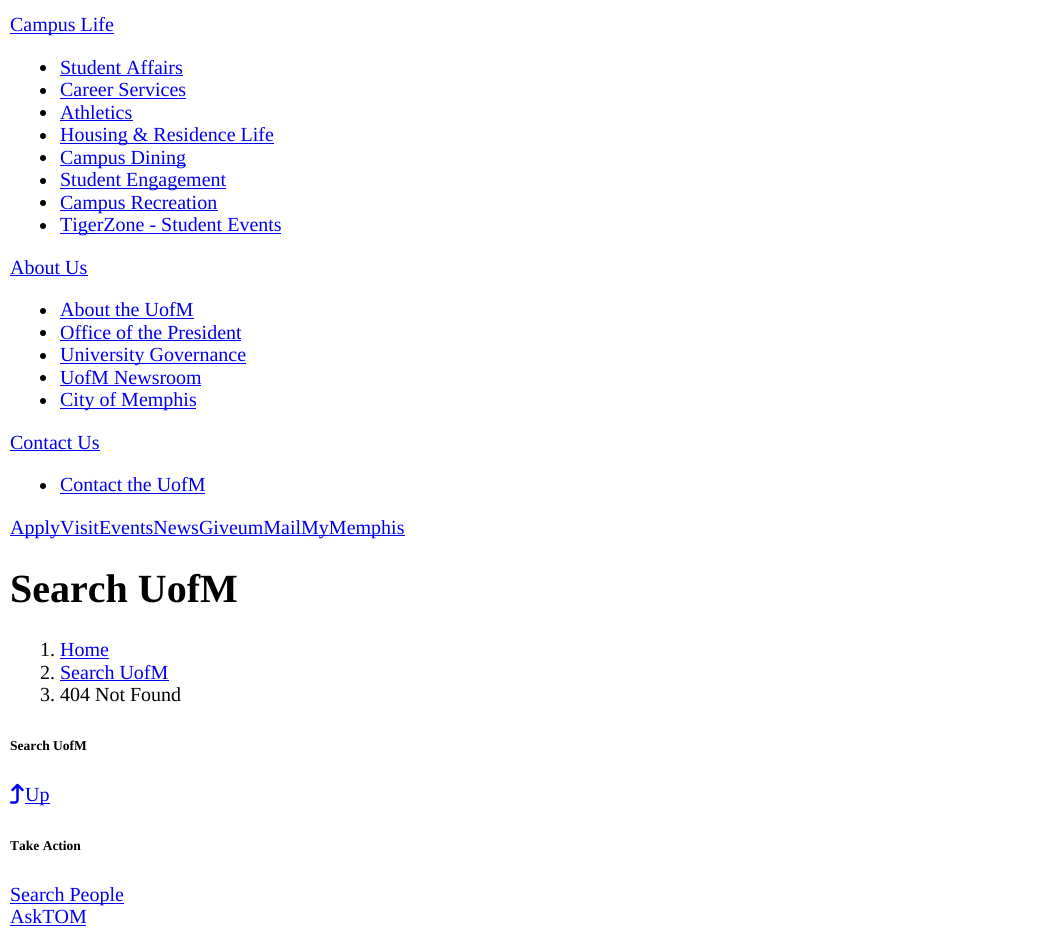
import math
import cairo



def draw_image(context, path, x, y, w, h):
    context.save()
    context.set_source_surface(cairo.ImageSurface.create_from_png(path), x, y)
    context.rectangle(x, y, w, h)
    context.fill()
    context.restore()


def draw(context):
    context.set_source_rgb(1, 1, 1)
    context.paint()
    context.set_source_rgb(0, 0, 238 / 255)
    context.rectangle(10, 33, 104, 1)
    context.fill()
    context.set_source_rgb(0, 0, 0)
    context.arc(43, 68, 3, 0, 2 * math.pi)
    context.fill()
    context.set_source_rgb(0, 0, 238 / 255)
    context.rectangle(60, 75, 123, 1)
    context.fill()
    context.set_source_rgb(0, 0, 0)
    context.arc(43, 91, 3, 0, 2 * math.pi)
    context.fill()
    context.set_source_rgb(0, 0, 238 / 255)
    context.rectangle(60, 98, 126, 1)
    context.fill()
    context.set_source_rgb(0, 0, 0)
    context.arc(43, 113, 3, 0, 2 * math.pi)
    context.fill()
    context.set_source_rgb(0, 0, 238 / 255)
    context.rectangle(60, 120, 73, 1)
    context.fill()
    context.set_source_rgb(0, 0, 0)
    context.arc(43, 136, 3, 0, 2 * math.pi)
    context.fill()
    context.set_source_rgb(0, 0, 238 / 255)
    context.rectangle(60, 143, 214, 1)
    context.fill()
    context.set_source_rgb(0, 0, 0)
    context.arc(43, 158, 3, 0, 2 * math.pi)
    context.fill()
    context.set_source_rgb(0, 0, 238 / 255)
    context.rectangle(60, 165, 126, 1)
    context.fill()
    context.set_source_rgb(0, 0, 0)
    context.arc(43, 181, 3, 0, 2 * math.pi)
    context.fill()
    context.set_source_rgb(0, 0, 238 / 255)
    context.rectangle(60, 188, 166, 1)
    context.fill()
    context.set_source_rgb(0, 0, 0)
    context.arc(43, 203, 3, 0, 2 * math.pi)
    context.fill()
    context.set_source_rgb(0, 0, 238 / 255)
    context.rectangle(60, 210, 158, 1)
    context.fill()
    context.set_source_rgb(0, 0, 0)
    context.arc(43, 226, 3, 0, 2 * math.pi)
    context.fill()
    context.set_source_rgb(0, 0, 238 / 255)
    context.rectangle(60, 233, 221, 1)
    context.fill()
    context.rectangle(10, 275, 78, 1)
    context.fill()
    context.set_source_rgb(0, 0, 0)
    context.arc(43, 311, 3, 0, 2 * math.pi)
    context.fill()
    context.set_source_rgb(0, 0, 238 / 255)
    context.rectangle(60, 318, 134, 1)
    context.fill()
    context.set_source_rgb(0, 0, 0)
    context.arc(43, 333, 3, 0, 2 * math.pi)
    context.fill()
    context.set_source_rgb(0, 0, 238 / 255)
    context.rectangle(60, 340, 181, 1)
    context.fill()
    context.set_source_rgb(0, 0, 0)
    context.arc(43, 356, 3, 0, 2 * math.pi)
    context.fill()
    context.set_source_rgb(0, 0, 238 / 255)
    context.rectangle(60, 363, 186, 1)
    context.fill()
    context.set_source_rgb(0, 0, 0)
    context.arc(43, 378, 3, 0, 2 * math.pi)
    context.fill()
    context.set_source_rgb(0, 0, 238 / 255)
    context.rectangle(60, 385, 141, 1)
    context.fill()
    context.set_source_rgb(0, 0, 0)
    context.arc(43, 401, 3, 0, 2 * math.pi)
    context.fill()
    context.set_source_rgb(0, 0, 238 / 255)
    context.rectangle(60, 408, 136, 1)
    context.fill()
    context.rectangle(10, 450, 90, 1)
    context.fill()
    context.set_source_rgb(0, 0, 0)
    context.arc(43, 486, 3, 0, 2 * math.pi)
    context.fill()
    context.set_source_rgb(0, 0, 238 / 255)
    context.rectangle(60, 493, 145, 1)
    context.fill()
    context.rectangle(10, 535, 395, 1)
    context.fill()
    context.rectangle(60, 658, 49, 1)
    context.fill()
    context.rectangle(60, 680, 109, 1)
    context.fill()
    draw_image(context, "images/1.png", 10, 783, 14, 21)
    context.rectangle(25, 803, 25, 1)
    context.fill()
    context.rectangle(10, 903, 114, 1)
    context.fill()
    context.rectangle(10, 925, 76, 1)
    context.fill()
    context.select_font_face("Liberation Serif")
    context.set_font_size(20)
    context.move_to(10, 31)
    context.show_text("Campus Life")
    context.move_to(60, 74)
    context.show_text("Student Affairs")
    context.move_to(60, 96)
    context.show_text("Career Services")
    context.move_to(60, 119)
    context.show_text("Athletics")
    context.move_to(60, 141)
    context.show_text("Housing & Residence Life")
    context.move_to(60, 164)
    context.show_text("Campus Dining")
    context.move_to(60, 186)
    context.show_text("Student Engagement")
    context.move_to(60, 209)
    context.show_text("Campus Recreation")
    context.move_to(60, 231)
    context.show_text("TigerZone - Student Events")
    context.move_to(10, 274)
    context.show_text("About Us")
    context.move_to(60, 316)
    context.show_text("About the UofM")
    context.move_to(60, 339)
    context.show_text("Office of the President")
    context.move_to(60, 361)
    context.show_text("University Governance")
    context.move_to(60, 384)
    context.show_text("UofM Newsroom")
    context.move_to(60, 406)
    context.show_text("City of Memphis")
    context.move_to(10, 449)
    context.show_text("Contact Us")
    context.move_to(60, 491)
    context.show_text("Contact the UofM")
    context.move_to(10, 534)
    context.show_text("ApplyVisitEventsNewsGiveumMailMyMemphis")
    context.select_font_face("Liberation Serif", cairo.FontSlant.NORMAL, cairo.FontWeight.BOLD)
    context.set_font_size(40)
    context.set_source_rgb(0, 0, 0)
    context.move_to(10, 602)
    context.show_text("Search UofM")
    context.select_font_face("Liberation Serif")
    context.set_font_size(20)
    context.move_to(40, 656)
    context.show_text("1.")
    context.set_source_rgb(0, 0, 238 / 255)
    context.move_to(60, 656)
    context.show_text("Home")
    context.set_source_rgb(0, 0, 0)
    context.move_to(40, 679)
    context.show_text("2.")
    context.set_source_rgb(0, 0, 238 / 255)
    context.move_to(60, 679)
    context.show_text("Search UofM")
    context.set_source_rgb(0, 0, 0)
    context.move_to(40, 701)
    context.show_text("3. 404 Not Found")
    context.select_font_face("Liberation Serif", cairo.FontSlant.NORMAL, cairo.FontWeight.BOLD)
    context.set_font_size(13.5)
    context.move_to(10, 750)
    context.show_text("Search UofM")
    context.select_font_face("Liberation Serif")
    context.set_font_size(20)
    context.set_source_rgb(0, 0, 238 / 255)
    context.move_to(25, 801)
    context.show_text("Up")
    context.select_font_face("Liberation Serif", cairo.FontSlant.NORMAL, cairo.FontWeight.BOLD)
    context.set_font_size(13.5)
    context.set_source_rgb(0, 0, 0)
    context.move_to(10, 850)
    context.show_text("Take Action")
    context.select_font_face("Liberation Serif")
    context.set_font_size(20)
    context.set_source_rgb(0, 0, 238 / 255)
    context.move_to(10, 901)
    context.show_text("Search People")
    context.move_to(10, 923)
    context.show_text("AskTOM")


surface = cairo.ImageSurface(cairo.Format.RGB24, 1063, 942)
context = cairo.Context(surface)
options = cairo.FontOptions()
options.set_hint_metrics(cairo.HintMetrics.OFF)
options.set_hint_style(cairo.HintStyle.NONE)
context.set_font_options(options)
context.set_miter_limit(4)
draw(context)
surface.write_to_png("out.png")
